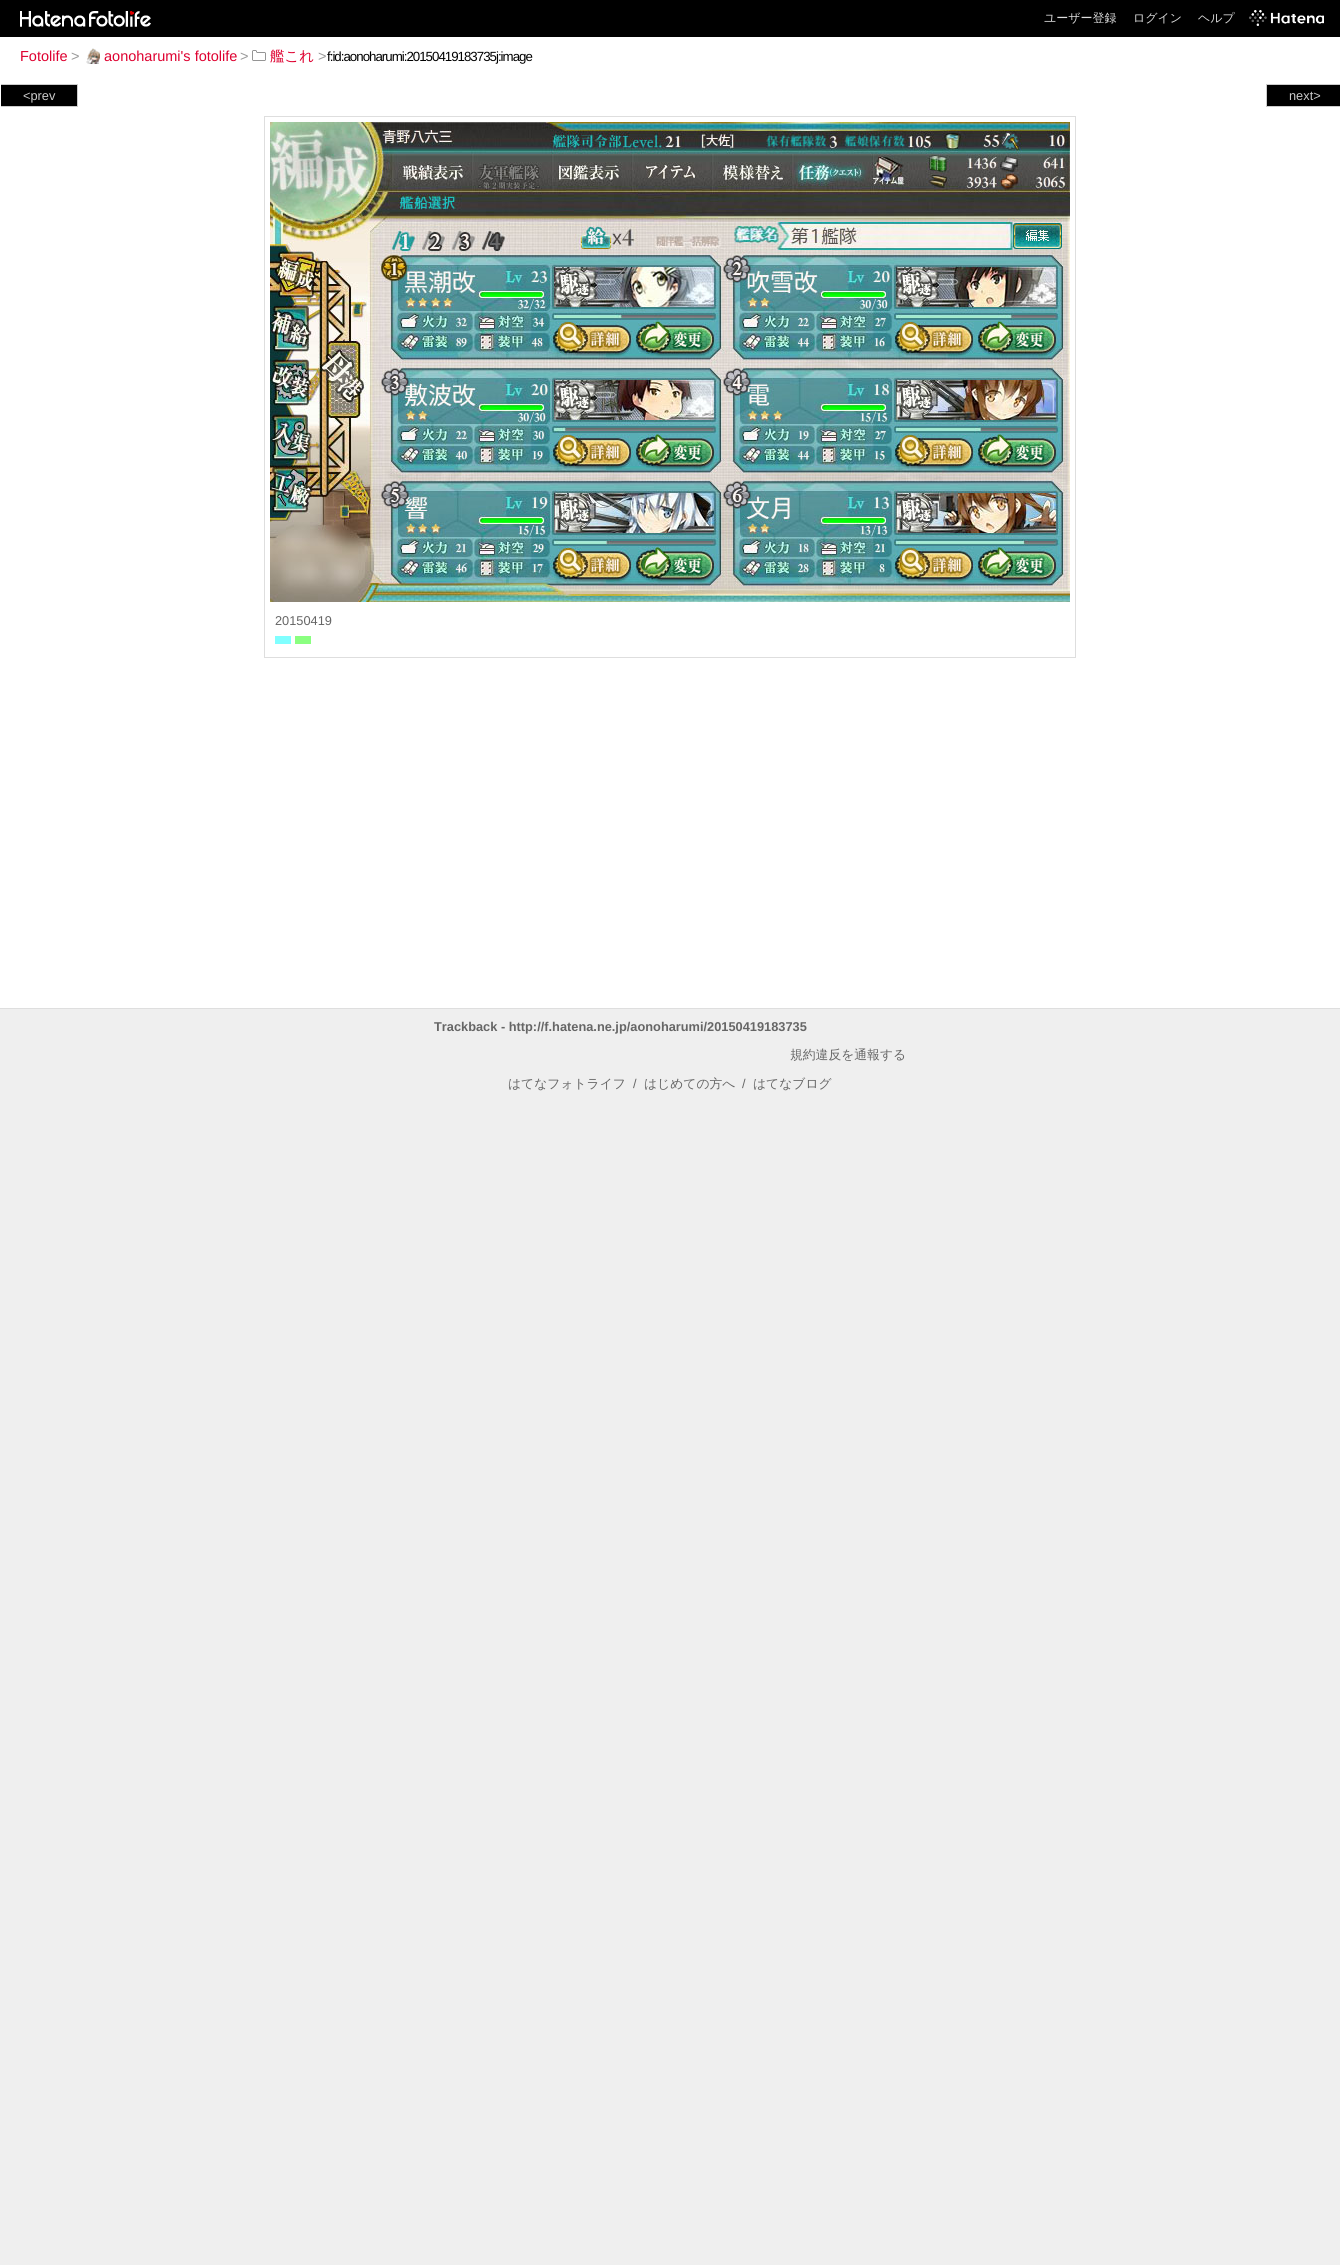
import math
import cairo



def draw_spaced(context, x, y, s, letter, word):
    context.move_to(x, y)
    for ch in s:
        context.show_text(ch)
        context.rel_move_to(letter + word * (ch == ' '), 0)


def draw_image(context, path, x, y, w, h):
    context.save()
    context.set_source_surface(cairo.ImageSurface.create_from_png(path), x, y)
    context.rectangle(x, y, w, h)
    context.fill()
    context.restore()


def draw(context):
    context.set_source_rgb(239 / 255, 239 / 255, 239 / 255)
    context.paint()
    context.set_source_rgb(0, 0, 0)
    context.rectangle(0, 0, 1340, 37)
    context.fill()
    draw_image(context, "images/1.png", 20, 11, 66, 16)
    draw_image(context, "images/2.png", 89, 11, 62, 16)
    draw_image(context, "images/3.png", 1249, 10, 75, 16)
    context.set_source_rgb(1, 1, 1)
    context.rectangle(0, 37, 1340, 971)
    context.fill()
    draw_image(context, "images/4.png", 86, 48, 14, 16)
    draw_image(context, "images/5.png", 252, 50, 14, 11)
    context.set_source_rgb(222 / 255, 222 / 255, 222 / 255)
    context.rectangle(0, 1008, 1340, 1)
    context.fill()
    context.set_source_rgb(0, 0, 0)
    context.rectangle(1, 85, 76, 21)
    context.fill()
    context.set_source_rgb(204 / 255, 204 / 255, 204 / 255)
    context.rectangle(1, 84, 77, 1)
    context.fill()
    context.rectangle(77, 84, 1, 23)
    context.fill()
    context.rectangle(1, 106, 77, 1)
    context.fill()
    context.set_source_rgb(0, 0, 0)
    context.rectangle(1267, 85, 73, 21)
    context.fill()
    context.set_source_rgb(204 / 255, 204 / 255, 204 / 255)
    context.rectangle(1266, 84, 74, 1)
    context.fill()
    context.rectangle(1266, 106, 74, 1)
    context.fill()
    context.rectangle(1266, 84, 1, 23)
    context.fill()
    context.rectangle(264.5, 116.5, 811, 541)
    context.set_source_rgb(222 / 255, 222 / 255, 222 / 255)
    context.set_line_width(1)
    context.stroke()
    draw_image(context, "images/6.png", 270, 122, 800, 480)
    context.set_source_rgb(128 / 255, 1, 1)
    context.rectangle(275, 636, 16, 8)
    context.fill()
    context.set_source_rgb(138 / 255, 1, 128 / 255)
    context.rectangle(295, 636, 16, 8)
    context.fill()
    context.select_font_face("WenQuanYi Zen Hei Medium")
    context.set_font_size(12)
    context.set_source_rgb(221 / 255, 221 / 255, 221 / 255)
    context.move_to(1044, 22)
    context.show_text("ユーザー登録")
    context.move_to(1133, 22)
    context.show_text("ログイン")
    context.move_to(1198, 22)
    context.show_text("ヘルプ")
    context.select_font_face("Liberation Sans")
    context.set_font_size(14.5)
    context.set_source_rgb(222 / 255, 0, 47 / 255)
    context.move_to(20, 61)
    context.show_text("Fotolife")
    context.set_source_rgb(153 / 255, 153 / 255, 153 / 255)
    context.move_to(71, 61)
    context.show_text(">")
    context.set_source_rgb(222 / 255, 0, 47 / 255)
    context.move_to(104, 61)
    context.show_text("aonoharumi's fotolife")
    context.set_source_rgb(153 / 255, 153 / 255, 153 / 255)
    context.move_to(240, 61)
    context.show_text(">")
    context.select_font_face("WenQuanYi Zen Hei Medium")
    context.set_source_rgb(222 / 255, 0, 47 / 255)
    context.move_to(270, 61)
    context.show_text("艦これ")
    context.select_font_face("Liberation Sans")
    context.set_source_rgb(153 / 255, 153 / 255, 153 / 255)
    context.move_to(318, 61)
    context.show_text(">")
    context.set_font_size(13.3)
    context.set_source_rgb(0, 0, 0)
    draw_spaced(context, 327, 61, "f:id:aonoharumi:20150419183735j:image", -1, 0)
    context.set_font_size(12.8)
    context.set_source_rgb(204 / 255, 204 / 255, 204 / 255)
    context.move_to(23, 100)
    context.show_text("<prev")
    context.move_to(1289, 100)
    context.show_text("next>")
    context.set_source_rgb(102 / 255, 102 / 255, 102 / 255)
    context.move_to(275, 625)
    context.show_text("20150419")
    context.select_font_face("Liberation Sans", cairo.FontSlant.NORMAL, cairo.FontWeight.BOLD)
    context.move_to(434, 1031)
    context.show_text("Trackback - http://f.hatena.ne.jp/aonoharumi/20150419183735")
    context.select_font_face("WenQuanYi Zen Hei Medium")
    context.move_to(790, 1059)
    context.show_text("規約違反を通報する")
    context.move_to(508, 1088)
    context.show_text("はてなフォトライフ")
    context.select_font_face("Liberation Sans")
    context.move_to(633, 1088)
    context.show_text("/")
    context.select_font_face("WenQuanYi Zen Hei Medium")
    context.move_to(644, 1088)
    context.show_text("はじめての方へ")
    context.select_font_face("Liberation Sans")
    context.move_to(742, 1088)
    context.show_text("/")
    context.select_font_face("WenQuanYi Zen Hei Medium")
    context.move_to(753, 1088)
    context.show_text("はてなブログ")


surface = cairo.ImageSurface(cairo.Format.RGB24, 1340, 2265)
context = cairo.Context(surface)
options = cairo.FontOptions()
options.set_hint_metrics(cairo.HintMetrics.OFF)
options.set_hint_style(cairo.HintStyle.NONE)
context.set_font_options(options)
context.set_miter_limit(4)
draw(context)
surface.write_to_png("out.png")
